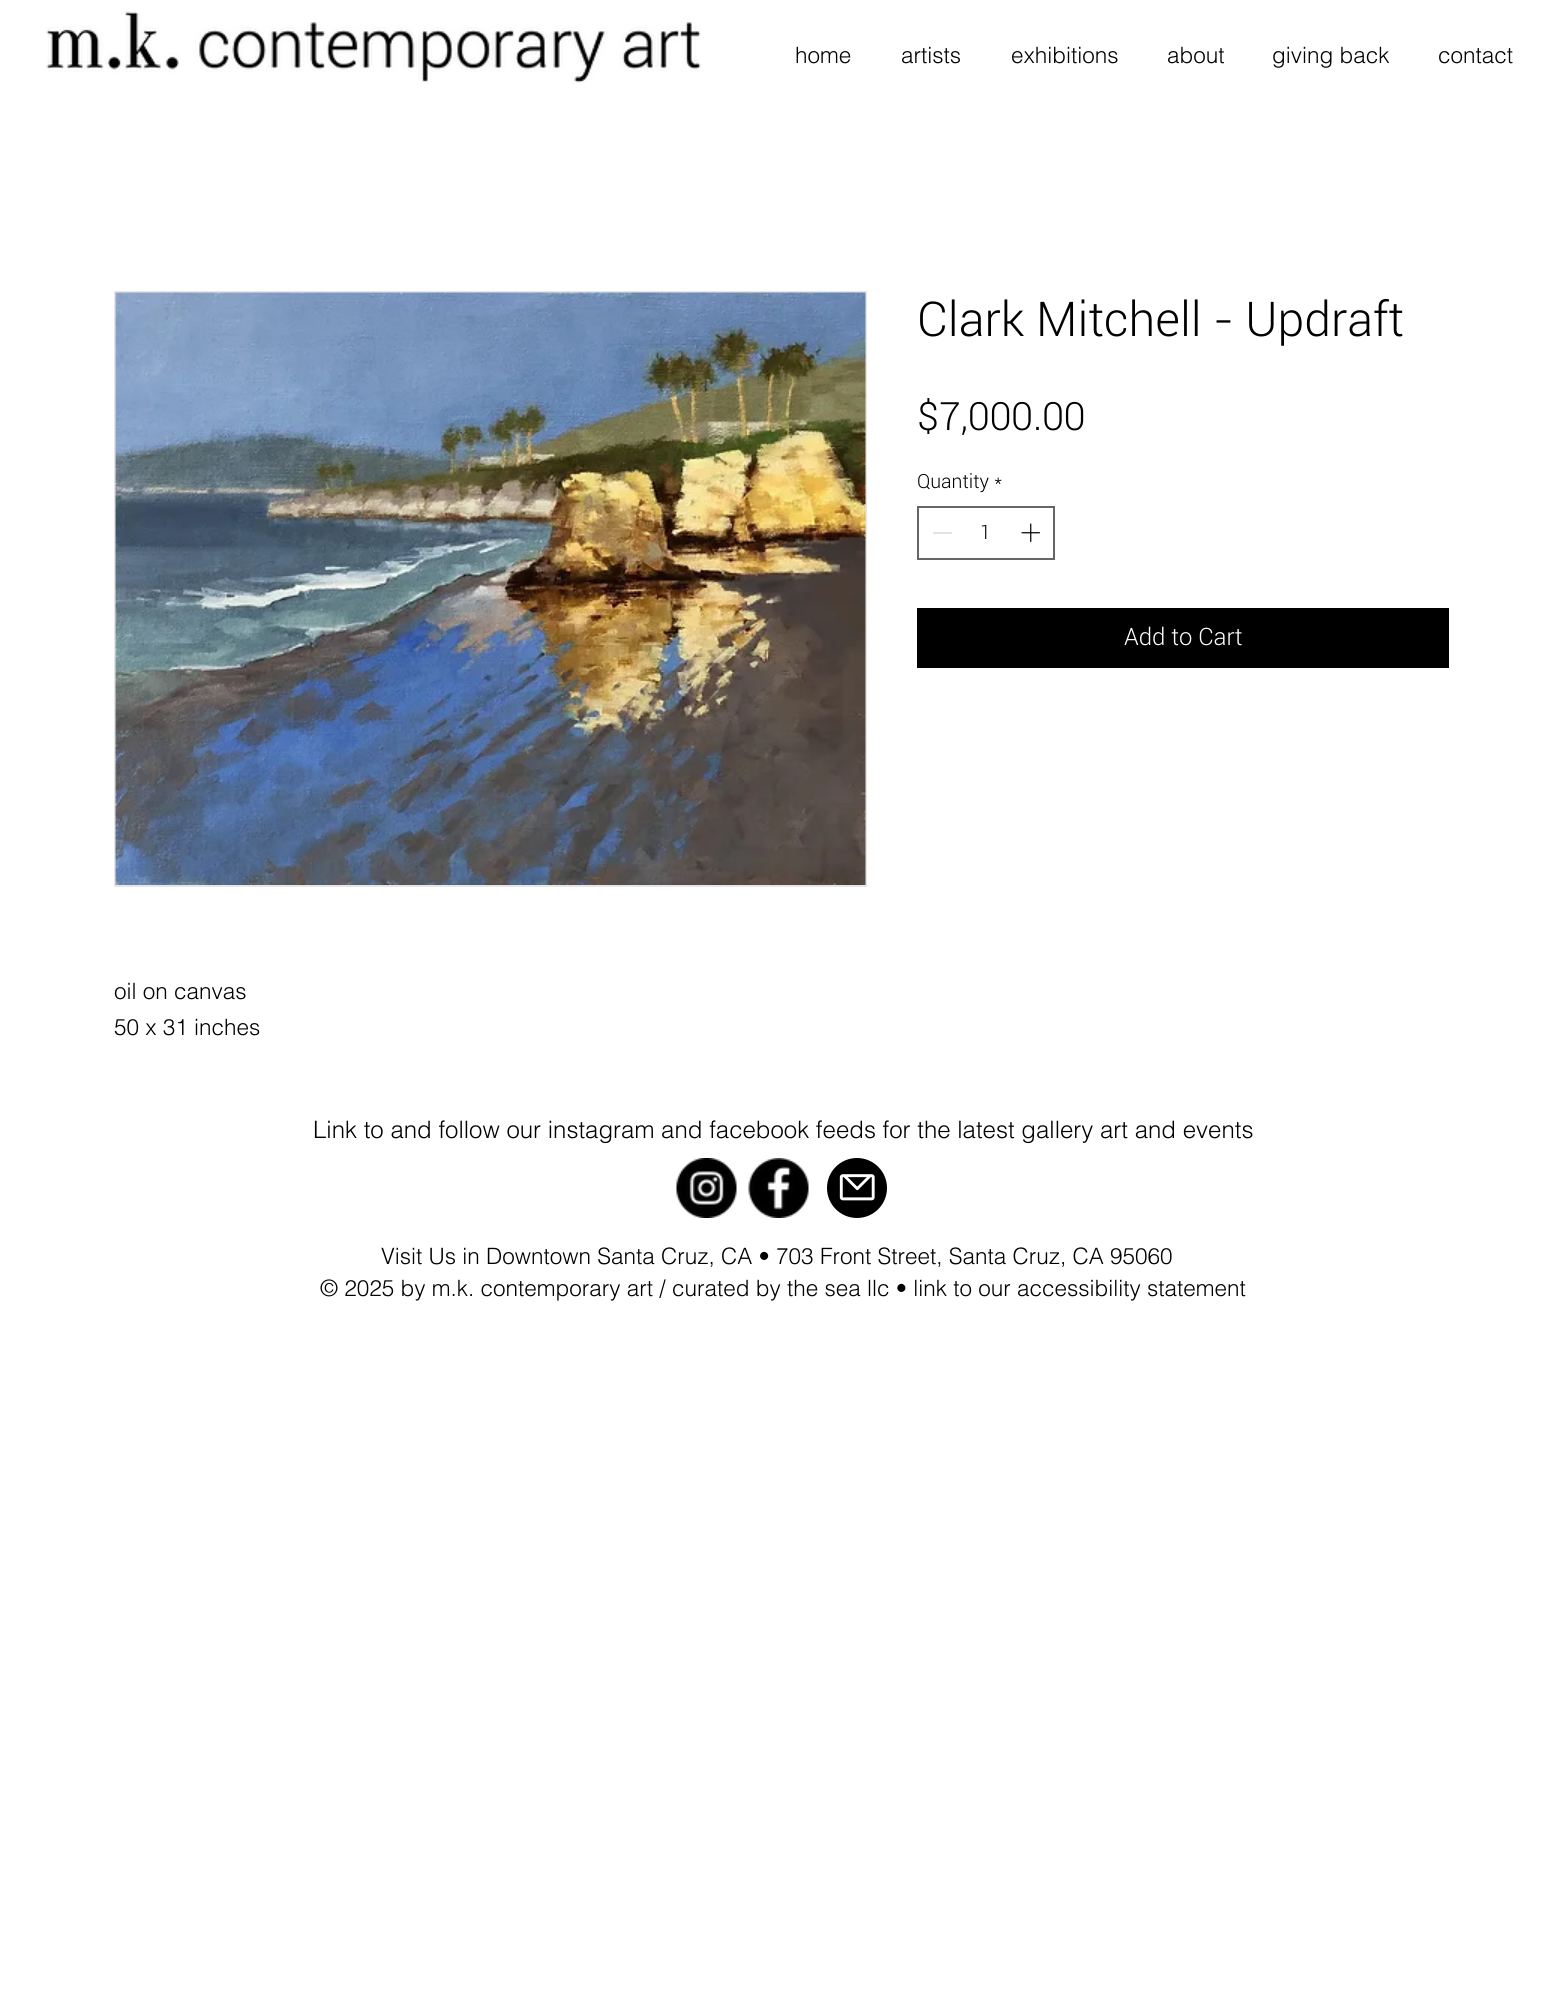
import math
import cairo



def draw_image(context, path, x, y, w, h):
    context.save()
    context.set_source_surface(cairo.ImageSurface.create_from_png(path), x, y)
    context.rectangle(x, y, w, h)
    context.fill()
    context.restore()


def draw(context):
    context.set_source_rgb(1, 1, 1)
    context.paint()
    draw_image(context, "images/1.png", 46, 11, 655, 72)
    context.rectangle(918, 507, 136, 52)
    context.set_source_rgb(102 / 255, 102 / 255, 102 / 255)
    context.stroke()
    context.set_source_rgb(227 / 255, 227 / 255, 227 / 255)
    context.rectangle(933, 532, 19, 2)
    context.fill()
    draw_image(context, "images/2.png", 1021, 523, 19, 19)
    context.set_source_rgb(0, 0, 0)
    context.rectangle(917, 608, 532, 60)
    context.fill()
    context.rectangle(115, 292, 751, 594)
    context.set_source_rgb(230 / 255, 230 / 255, 230 / 255)
    context.stroke()
    draw_image(context, "images/3.png", 115, 292, 751, 593)
    draw_image(context, "images/4.png", 676, 1158, 61, 60)
    draw_image(context, "images/5.png", 748, 1158, 61, 60)
    context.set_source_rgb(0, 0, 0)
    context.arc(857, 1188, 30, 0, 2 * math.pi)
    context.fill()
    draw_image(context, "images/6.png", 839, 1174, 36, 27)
    context.select_font_face("helvetica Light")
    context.set_font_size(22.5)
    context.move_to(795, 63)
    context.show_text("home")
    context.move_to(901, 63)
    context.show_text("artists")
    context.move_to(1011, 63)
    context.show_text("exhibitions")
    context.move_to(1167, 63)
    context.show_text("about")
    context.move_to(1272, 63)
    context.show_text("giving back")
    context.move_to(1438, 63)
    context.show_text("contact")
    context.select_font_face("Roboto Light")
    context.set_font_size(48)
    context.move_to(917, 336)
    context.show_text("Clark Mitchell - Updraft")
    context.set_font_size(39)
    context.move_to(917, 430)
    context.show_text("$7,000.00")
    context.set_font_size(19.5)
    context.move_to(917, 488)
    context.show_text("Quantity")
    context.move_to(994, 488)
    context.show_text("*")
    context.move_to(980, 539)
    context.show_text("1")
    context.set_font_size(24)
    context.set_source_rgb(1, 1, 1)
    context.move_to(1124, 645)
    context.show_text("Add to Cart")
    context.select_font_face("helvetica Light")
    context.set_font_size(22.5)
    context.set_source_rgb(0, 0, 0)
    context.move_to(114, 999)
    context.show_text("oil on canvas")
    context.move_to(114, 1035)
    context.show_text("50 x 31 inches")
    context.set_font_size(24)
    context.move_to(313, 1138)
    context.show_text("Link to and follow our instagram and facebook feeds for the latest gallery art and events")
    context.set_font_size(22.5)
    context.move_to(381, 1264)
    context.show_text("Visit Us in Downtown Santa Cruz, CA • 703 Front Street, Santa Cruz, CA 95060")
    context.move_to(320, 1296)
    context.show_text("© 2025 by m.k. contemporary art / curated by the sea llc • link to our accessibility statement")


surface = cairo.ImageSurface(cairo.Format.RGB24, 1563, 1999)
context = cairo.Context(surface)
options = cairo.FontOptions()
options.set_hint_metrics(cairo.HintMetrics.OFF)
options.set_hint_style(cairo.HintStyle.NONE)
context.set_font_options(options)
context.set_miter_limit(4)
draw(context)
surface.write_to_png("out.png")
